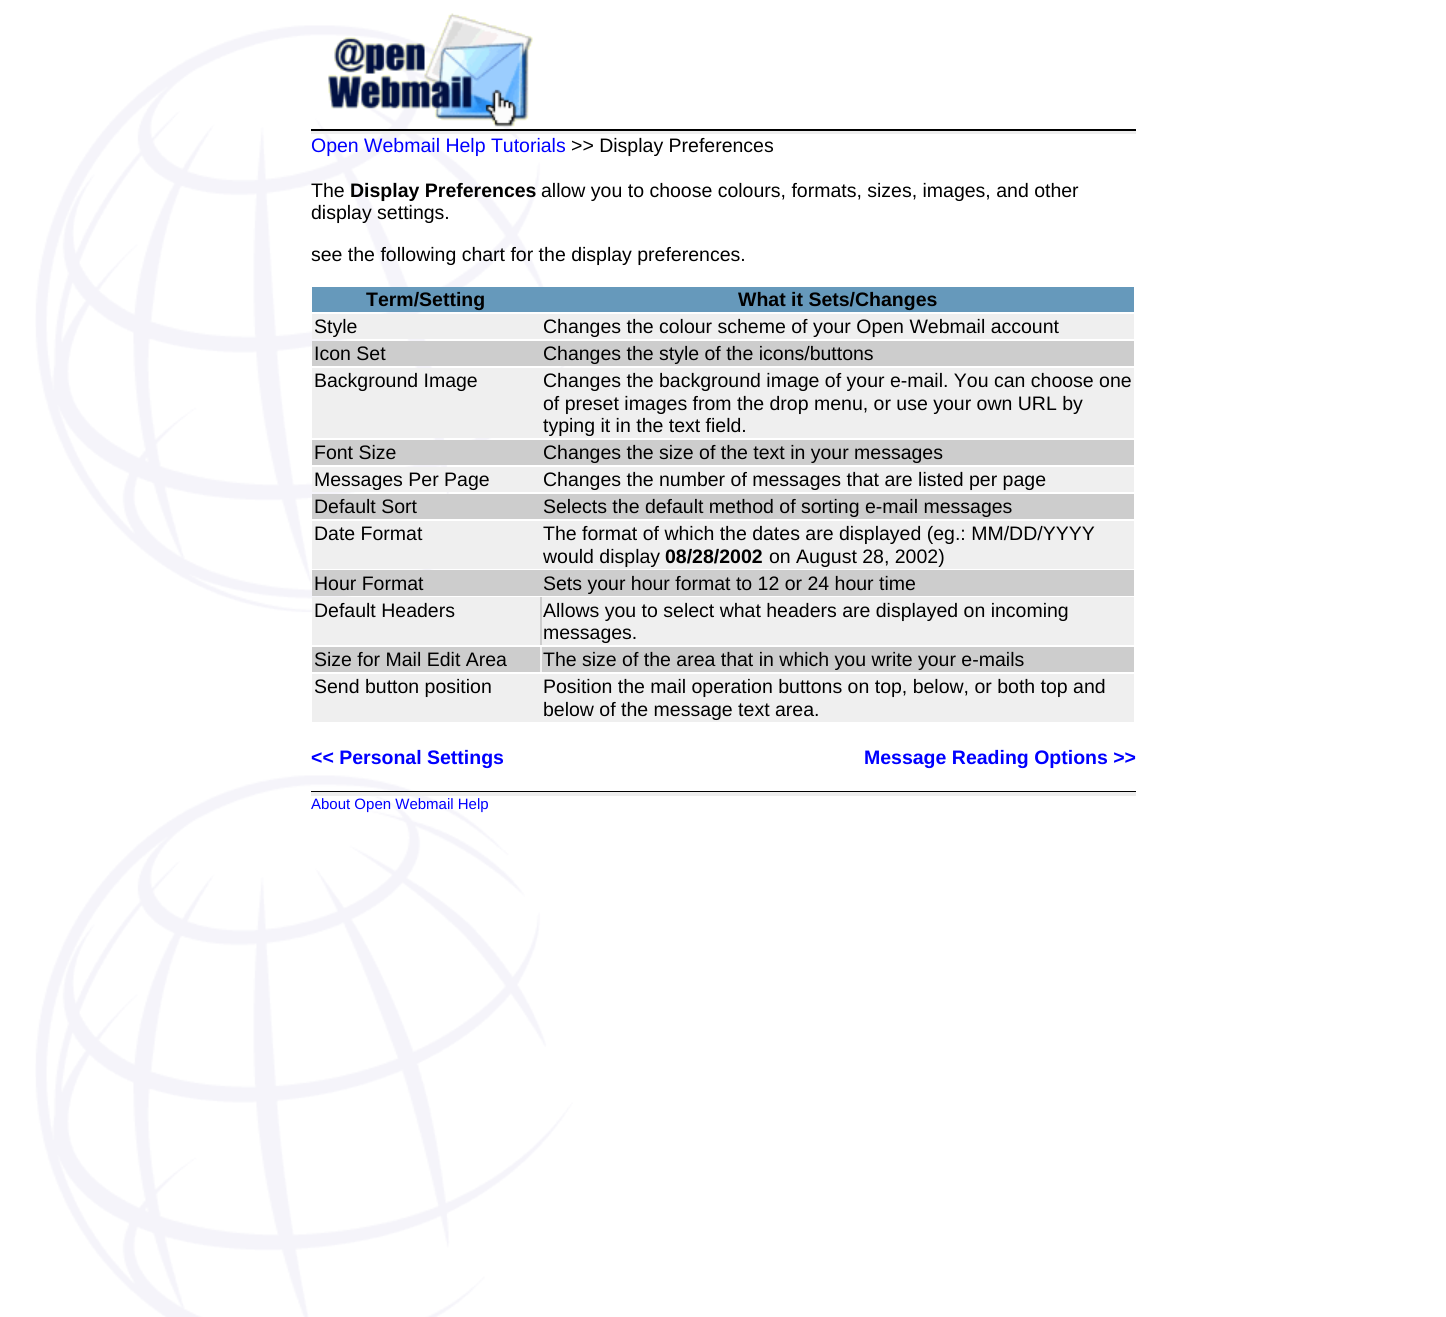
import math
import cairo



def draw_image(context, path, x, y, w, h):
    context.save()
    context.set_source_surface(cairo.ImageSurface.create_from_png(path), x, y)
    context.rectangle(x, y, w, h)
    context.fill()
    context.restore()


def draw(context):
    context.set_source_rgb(1, 1, 1)
    context.paint()
    draw_image(context, "images/1.png", 35, 25, 538, 1292)
    draw_image(context, "images/2.png", 328, 13, 205, 114)
    context.set_source_rgb(0, 0, 0)
    context.rectangle(311, 129, 825, 2)
    context.fill()
    context.set_source_rgb(238 / 255, 238 / 255, 238 / 255)
    context.rectangle(311, 131, 825, 3)
    context.fill()
    context.set_source_rgb(102 / 255, 153 / 255, 187 / 255)
    context.rectangle(312, 287, 822, 25)
    context.fill()
    context.set_source_rgb(239 / 255, 239 / 255, 239 / 255)
    context.rectangle(312, 314, 822, 25)
    context.fill()
    context.set_source_rgb(205 / 255, 205 / 255, 205 / 255)
    context.rectangle(312, 341, 822, 25)
    context.fill()
    context.set_source_rgb(239 / 255, 239 / 255, 239 / 255)
    context.rectangle(312, 368, 822, 70)
    context.fill()
    context.set_source_rgb(205 / 255, 205 / 255, 205 / 255)
    context.rectangle(312, 440, 822, 25)
    context.fill()
    context.set_source_rgb(239 / 255, 239 / 255, 239 / 255)
    context.rectangle(312, 467, 822, 25)
    context.fill()
    context.set_source_rgb(205 / 255, 205 / 255, 205 / 255)
    context.rectangle(312, 494, 822, 25)
    context.fill()
    context.set_source_rgb(239 / 255, 239 / 255, 239 / 255)
    context.rectangle(312, 521, 822, 48)
    context.fill()
    context.set_source_rgb(205 / 255, 205 / 255, 205 / 255)
    context.rectangle(312, 570, 822, 26)
    context.fill()
    context.rectangle(540, 597, 2, 48)
    context.fill()
    context.set_source_rgb(239 / 255, 239 / 255, 239 / 255)
    context.rectangle(312, 597, 228, 48)
    context.fill()
    context.rectangle(542, 597, 592, 48)
    context.fill()
    context.rectangle(540, 647, 2, 25)
    context.fill()
    context.set_source_rgb(205 / 255, 205 / 255, 205 / 255)
    context.rectangle(312, 647, 228, 25)
    context.fill()
    context.rectangle(542, 647, 592, 25)
    context.fill()
    context.set_source_rgb(239 / 255, 239 / 255, 239 / 255)
    context.rectangle(312, 674, 822, 48)
    context.fill()
    context.set_source_rgb(0, 0, 0)
    context.rectangle(311, 791, 825, 1)
    context.fill()
    context.set_source_rgb(238 / 255, 238 / 255, 238 / 255)
    context.rectangle(311, 792, 825, 4)
    context.fill()
    context.select_font_face("Liberation Sans")
    context.set_font_size(19.5)
    context.set_source_rgb(0, 0, 1)
    context.move_to(311, 152)
    context.show_text("Open Webmail Help Tutorials")
    context.set_source_rgb(0, 0, 0)
    context.move_to(571, 152)
    context.show_text(">> Display Preferences")
    context.move_to(311, 197)
    context.show_text("The")
    context.select_font_face("Liberation Sans", cairo.FontSlant.NORMAL, cairo.FontWeight.BOLD)
    context.move_to(350, 197)
    context.show_text("Display Preferences")
    context.select_font_face("Liberation Sans")
    context.move_to(541, 197)
    context.show_text("allow you to choose colours, formats, sizes, images, and other")
    context.move_to(311, 219)
    context.show_text("display settings.")
    context.move_to(311, 261)
    context.show_text("see the following chart for the display preferences.")
    context.select_font_face("Liberation Sans", cairo.FontSlant.NORMAL, cairo.FontWeight.BOLD)
    context.move_to(366, 306)
    context.show_text("Term/Setting")
    context.move_to(738, 306)
    context.show_text("What it Sets/Changes")
    context.select_font_face("Liberation Sans")
    context.move_to(314, 333)
    context.show_text("Style")
    context.move_to(543, 333)
    context.show_text("Changes the colour scheme of your Open Webmail account")
    context.move_to(314, 360)
    context.show_text("Icon Set")
    context.move_to(543, 360)
    context.show_text("Changes the style of the icons/buttons")
    context.move_to(314, 387)
    context.show_text("Background Image")
    context.move_to(543, 387)
    context.show_text("Changes the background image of your e-mail. You can choose one")
    context.move_to(543, 410)
    context.show_text("of preset images from the drop menu, or use your own URL by")
    context.move_to(543, 432)
    context.show_text("typing it in the text field.")
    context.move_to(314, 459)
    context.show_text("Font Size")
    context.move_to(543, 459)
    context.show_text("Changes the size of the text in your messages")
    context.move_to(314, 486)
    context.show_text("Messages Per Page")
    context.move_to(543, 486)
    context.show_text("Changes the number of messages that are listed per page")
    context.move_to(314, 513)
    context.show_text("Default Sort")
    context.move_to(543, 513)
    context.show_text("Selects the default method of sorting e-mail messages")
    context.move_to(314, 540)
    context.show_text("Date Format")
    context.move_to(543, 540)
    context.show_text("The format of which the dates are displayed (eg.: MM/DD/YYYY")
    context.move_to(543, 563)
    context.show_text("would display")
    context.select_font_face("Liberation Sans", cairo.FontSlant.NORMAL, cairo.FontWeight.BOLD)
    context.move_to(665, 563)
    context.show_text("08/28/2002")
    context.select_font_face("Liberation Sans")
    context.move_to(769, 563)
    context.show_text("on August 28, 2002)")
    context.move_to(314, 590)
    context.show_text("Hour Format")
    context.move_to(543, 590)
    context.show_text("Sets your hour format to 12 or 24 hour time")
    context.move_to(314, 617)
    context.show_text("Default Headers")
    context.move_to(543, 617)
    context.show_text("Allows you to select what headers are displayed on incoming")
    context.move_to(543, 639)
    context.show_text("messages.")
    context.move_to(314, 666)
    context.show_text("Size for Mail Edit Area")
    context.move_to(543, 666)
    context.show_text("The size of the area that in which you write your e-mails")
    context.move_to(314, 693)
    context.show_text("Send button position")
    context.move_to(543, 693)
    context.show_text("Position the mail operation buttons on top, below, or both top and")
    context.move_to(543, 716)
    context.show_text("below of the message text area.")
    context.select_font_face("Liberation Sans", cairo.FontSlant.NORMAL, cairo.FontWeight.BOLD)
    context.set_source_rgb(0, 0, 1)
    context.move_to(311, 764)
    context.show_text("<< Personal Settings")
    context.move_to(864, 764)
    context.show_text("Message Reading Options >>")
    context.select_font_face("Liberation Sans")
    context.set_font_size(15)
    context.move_to(311, 809)
    context.show_text("About Open Webmail Help")


surface = cairo.ImageSurface(cairo.Format.RGB24, 1446, 1317)
context = cairo.Context(surface)
options = cairo.FontOptions()
options.set_hint_metrics(cairo.HintMetrics.OFF)
options.set_hint_style(cairo.HintStyle.NONE)
context.set_font_options(options)
context.set_miter_limit(4)
draw(context)
surface.write_to_png("out.png")
